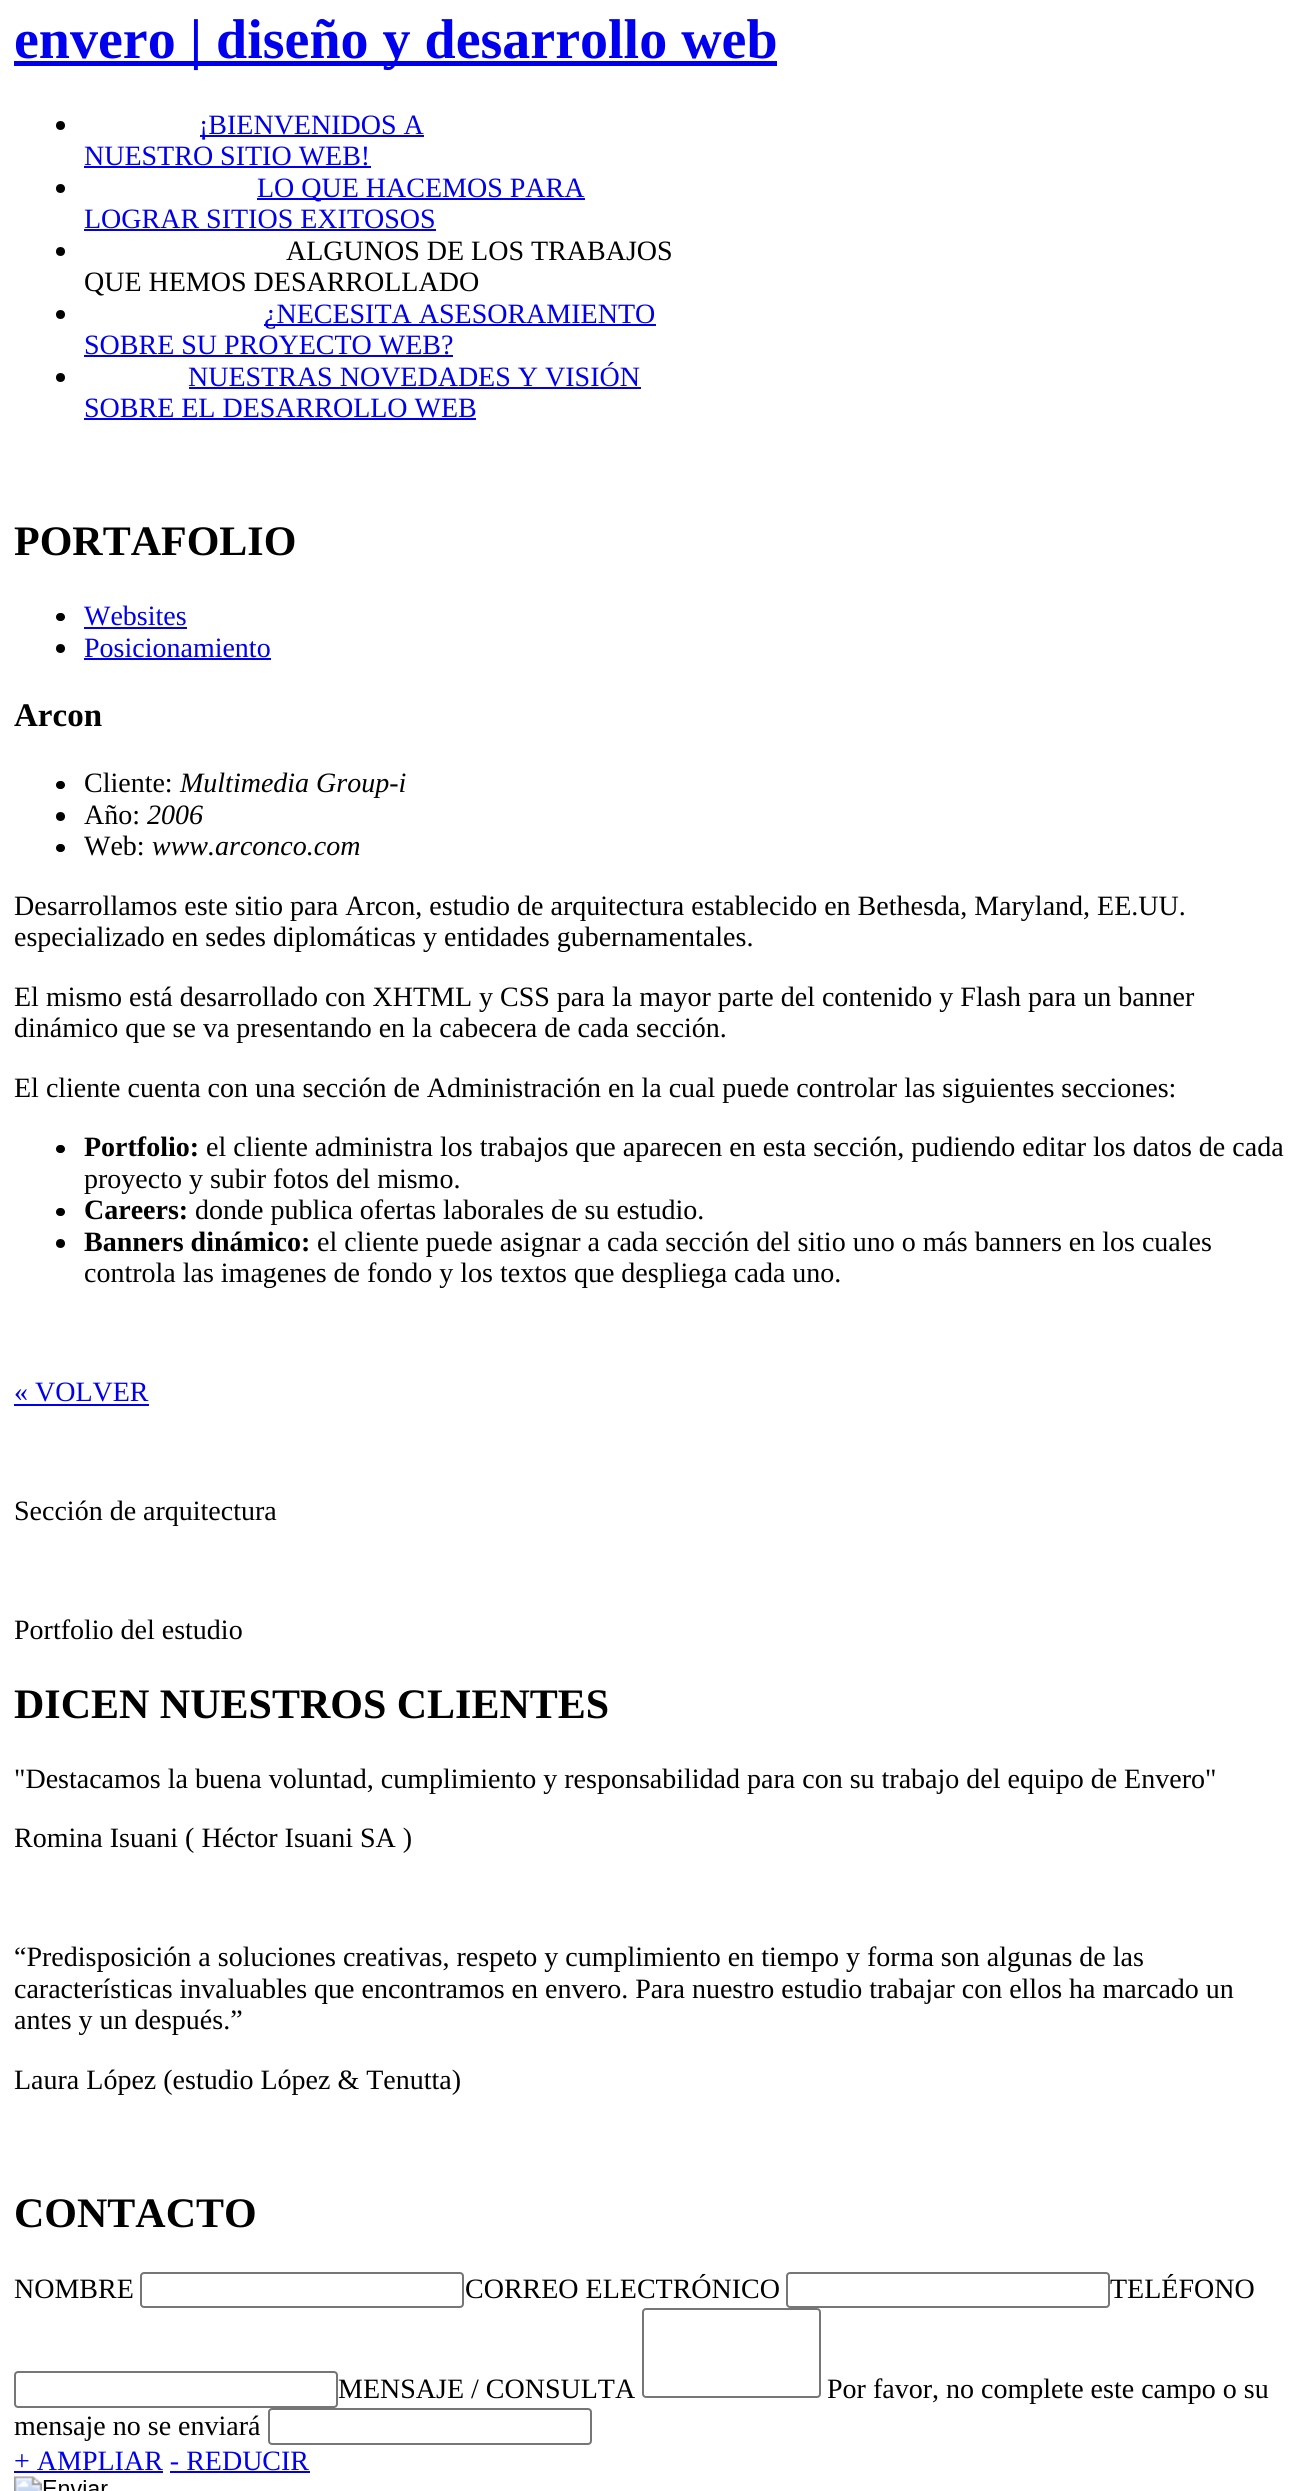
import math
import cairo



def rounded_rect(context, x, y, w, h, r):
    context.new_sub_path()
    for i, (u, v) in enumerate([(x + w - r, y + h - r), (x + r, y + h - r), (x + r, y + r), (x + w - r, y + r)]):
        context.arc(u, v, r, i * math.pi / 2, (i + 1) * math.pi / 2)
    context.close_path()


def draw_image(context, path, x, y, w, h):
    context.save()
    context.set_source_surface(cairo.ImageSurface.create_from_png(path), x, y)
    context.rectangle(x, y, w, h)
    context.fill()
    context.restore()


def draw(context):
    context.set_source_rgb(1, 1, 1)
    context.paint()
    context.set_source_rgb(0, 0, 238 / 255)
    context.rectangle(14, 61, 763, 5)
    context.fill()
    context.set_source_rgb(0, 0, 0)
    context.arc(60.5, 125.5, 4.5, 0, 2 * math.pi)
    context.fill()
    context.set_source_rgb(0, 0, 238 / 255)
    context.rectangle(200, 135, 224, 2)
    context.fill()
    context.rectangle(84, 166, 287, 2)
    context.fill()
    context.set_source_rgb(0, 0, 0)
    context.arc(60.5, 188.5, 4.5, 0, 2 * math.pi)
    context.fill()
    context.set_source_rgb(0, 0, 238 / 255)
    context.rectangle(257, 198, 328, 2)
    context.fill()
    context.rectangle(84, 229, 352, 2)
    context.fill()
    context.set_source_rgb(0, 0, 0)
    context.arc(60.5, 251.5, 4.5, 0, 2 * math.pi)
    context.fill()
    context.arc(60.5, 314.5, 4.5, 0, 2 * math.pi)
    context.fill()
    context.set_source_rgb(0, 0, 238 / 255)
    context.rectangle(264, 324, 392, 2)
    context.fill()
    context.rectangle(84, 355, 369, 2)
    context.fill()
    context.set_source_rgb(0, 0, 0)
    context.arc(60.5, 377.5, 4.5, 0, 2 * math.pi)
    context.fill()
    context.set_source_rgb(0, 0, 238 / 255)
    context.rectangle(189, 387, 452, 2)
    context.fill()
    context.rectangle(84, 418, 392, 2)
    context.fill()
    context.set_source_rgb(0, 0, 0)
    rounded_rect(context, 56, 613, 9, 8, 4)
    context.fill()
    context.set_source_rgb(0, 0, 238 / 255)
    context.rectangle(84, 627, 103, 2)
    context.fill()
    context.set_source_rgb(0, 0, 0)
    context.arc(60.5, 648.5, 4.5, 0, 2 * math.pi)
    context.fill()
    context.set_source_rgb(0, 0, 238 / 255)
    context.rectangle(84, 658, 187, 2)
    context.fill()
    context.set_source_rgb(0, 0, 0)
    rounded_rect(context, 56, 781, 9, 8, 4)
    context.fill()
    context.arc(60.5, 816.5, 4.5, 0, 2 * math.pi)
    context.fill()
    rounded_rect(context, 56, 844, 9, 8, 4)
    context.fill()
    rounded_rect(context, 56, 1145, 9, 8, 4)
    context.fill()
    rounded_rect(context, 56, 1208, 9, 8, 4)
    context.fill()
    context.arc(60.5, 1243.5, 4.5, 0, 2 * math.pi)
    context.fill()
    context.set_source_rgb(0, 0, 238 / 255)
    context.rectangle(14, 1404, 135, 2)
    context.fill()
    rounded_rect(context, 141, 2273, 322, 34, 3)
    context.set_source_rgb(118 / 255, 118 / 255, 118 / 255)
    context.stroke()
    rounded_rect(context, 787, 2273, 322, 34, 3)
    context.stroke()
    rounded_rect(context, 15, 2372, 322, 35, 3)
    context.stroke()
    rounded_rect(context, 643, 2309, 177, 88, 3)
    context.stroke()
    rounded_rect(context, 269, 2409, 322, 35, 3)
    context.stroke()
    context.set_source_rgb(0, 0, 238 / 255)
    context.rectangle(14, 2471, 149, 2)
    context.fill()
    context.rectangle(170, 2471, 140, 2)
    context.fill()
    draw_image(context, "images/1.png", 14, 2476, 94, 15)
    context.select_font_face("Liberation Serif", cairo.FontSlant.NORMAL, cairo.FontWeight.BOLD)
    context.set_font_size(56)
    context.move_to(14, 58)
    context.show_text("envero | diseño y desarrollo web")
    context.select_font_face("Liberation Serif")
    context.set_font_size(28)
    context.move_to(199, 134)
    context.show_text("¡BIENVENIDOS A")
    context.move_to(84, 165)
    context.show_text("NUESTRO SITIO WEB!")
    context.move_to(257, 197)
    context.show_text("LO QUE HACEMOS PARA")
    context.move_to(84, 228)
    context.show_text("LOGRAR SITIOS EXITOSOS")
    context.set_source_rgb(0, 0, 0)
    context.move_to(286, 260)
    context.show_text("ALGUNOS DE LOS TRABAJOS")
    context.move_to(84, 291)
    context.show_text("QUE HEMOS DESARROLLADO")
    context.set_source_rgb(0, 0, 238 / 255)
    context.move_to(264, 323)
    context.show_text("¿NECESITA ASESORAMIENTO")
    context.move_to(84, 354)
    context.show_text("SOBRE SU PROYECTO WEB?")
    context.move_to(188, 386)
    context.show_text("NUESTRAS NOVEDADES Y VISIÓN")
    context.move_to(84, 417)
    context.show_text("SOBRE EL DESARROLLO WEB")
    context.select_font_face("Liberation Serif", cairo.FontSlant.NORMAL, cairo.FontWeight.BOLD)
    context.set_font_size(42)
    context.set_source_rgb(0, 0, 0)
    context.move_to(14, 555)
    context.show_text("PORTAFOLIO")
    context.select_font_face("Liberation Serif")
    context.set_font_size(28)
    context.set_source_rgb(0, 0, 238 / 255)
    context.move_to(84, 625)
    context.show_text("Websites")
    context.move_to(84, 657)
    context.show_text("Posicionamiento")
    context.select_font_face("Liberation Serif", cairo.FontSlant.NORMAL, cairo.FontWeight.BOLD)
    context.set_font_size(33)
    context.set_source_rgb(0, 0, 0)
    context.move_to(14, 726)
    context.show_text("Arcon")
    context.select_font_face("Liberation Serif")
    context.set_font_size(28)
    context.move_to(84, 792)
    context.show_text("Cliente:")
    context.select_font_face("Liberation Serif", cairo.FontSlant.ITALIC)
    context.move_to(180, 792)
    context.show_text("Multimedia Group-i")
    context.select_font_face("Liberation Serif")
    context.move_to(84, 824)
    context.show_text("Año:")
    context.select_font_face("Liberation Serif", cairo.FontSlant.ITALIC)
    context.move_to(147, 824)
    context.show_text("2006")
    context.select_font_face("Liberation Serif")
    context.move_to(84, 855)
    context.show_text("Web:")
    context.select_font_face("Liberation Serif", cairo.FontSlant.ITALIC)
    context.move_to(152, 855)
    context.show_text("www.arconco.com")
    context.select_font_face("Liberation Serif")
    context.move_to(14, 915)
    context.show_text("Desarrollamos este sitio para Arcon, estudio de arquitectura establecido en Bethesda, Maryland, EE.UU.")
    context.move_to(14, 946)
    context.show_text("especializado en sedes diplomáticas y entidades gubernamentales.")
    context.move_to(14, 1006)
    context.show_text("El mismo está desarrollado con XHTML y CSS para la mayor parte del contenido y Flash para un banner")
    context.move_to(14, 1037)
    context.show_text("dinámico que se va presentando en la cabecera de cada sección.")
    context.move_to(14, 1097)
    context.show_text("El cliente cuenta con una sección de Administración en la cual puede controlar las siguientes secciones:")
    context.select_font_face("Liberation Serif", cairo.FontSlant.NORMAL, cairo.FontWeight.BOLD)
    context.move_to(84, 1156)
    context.show_text("Portfolio:")
    context.select_font_face("Liberation Serif")
    context.move_to(206, 1156)
    context.show_text("el cliente administra los trabajos que aparecen en esta sección, pudiendo editar los datos de cada")
    context.move_to(84, 1188)
    context.show_text("proyecto y subir fotos del mismo.")
    context.select_font_face("Liberation Serif", cairo.FontSlant.NORMAL, cairo.FontWeight.BOLD)
    context.move_to(84, 1219)
    context.show_text("Careers:")
    context.select_font_face("Liberation Serif")
    context.move_to(195, 1219)
    context.show_text("donde publica ofertas laborales de su estudio.")
    context.select_font_face("Liberation Serif", cairo.FontSlant.NORMAL, cairo.FontWeight.BOLD)
    context.move_to(84, 1251)
    context.show_text("Banners dinámico:")
    context.select_font_face("Liberation Serif")
    context.move_to(317, 1251)
    context.show_text("el cliente puede asignar a cada sección del sitio uno o más banners en los cuales")
    context.move_to(84, 1282)
    context.show_text("controla las imagenes de fondo y los textos que despliega cada uno.")
    context.set_source_rgb(0, 0, 238 / 255)
    context.move_to(14, 1401)
    context.show_text("« VOLVER")
    context.set_source_rgb(0, 0, 0)
    context.move_to(14, 1520)
    context.show_text("Sección de arquitectura")
    context.move_to(14, 1639)
    context.show_text("Portfolio del estudio")
    context.select_font_face("Liberation Serif", cairo.FontSlant.NORMAL, cairo.FontWeight.BOLD)
    context.set_font_size(42)
    context.move_to(14, 1718)
    context.show_text("DICEN NUESTROS CLIENTES")
    context.select_font_face("Liberation Serif")
    context.set_font_size(28)
    context.move_to(14, 1788)
    context.show_text("\"Destacamos la buena voluntad, cumplimiento y responsabilidad para con su trabajo del equipo de Envero\"")
    context.move_to(14, 1847)
    context.show_text("Romina Isuani ( Héctor Isuani SA )")
    context.move_to(14, 1966)
    context.show_text("“Predisposición a soluciones creativas, respeto y cumplimiento en tiempo y forma son algunas de las")
    context.move_to(14, 1998)
    context.show_text("características invaluables que encontramos en envero. Para nuestro estudio trabajar con ellos ha marcado un")
    context.move_to(14, 2029)
    context.show_text("antes y un después.”")
    context.move_to(14, 2089)
    context.show_text("Laura López (estudio López & Tenutta)")
    context.select_font_face("Liberation Serif", cairo.FontSlant.NORMAL, cairo.FontWeight.BOLD)
    context.set_font_size(42)
    context.move_to(14, 2227)
    context.show_text("CONTACTO")
    context.select_font_face("Liberation Serif")
    context.set_font_size(28)
    context.move_to(14, 2298)
    context.show_text("NOMBRE")
    context.move_to(465, 2298)
    context.show_text("CORREO ELECTRÓNICO")
    context.move_to(1110, 2298)
    context.show_text("TELÉFONO")
    context.move_to(338, 2398)
    context.show_text("MENSAJE / CONSULTA")
    context.move_to(827, 2398)
    context.show_text("Por favor, no complete este campo o su")
    context.move_to(14, 2435)
    context.show_text("mensaje no se enviará")
    context.set_source_rgb(0, 0, 238 / 255)
    context.move_to(14, 2470)
    context.show_text("+ AMPLIAR - REDUCIR")


surface = cairo.ImageSurface(cairo.Format.RGB24, 1305, 2491)
context = cairo.Context(surface)
options = cairo.FontOptions()
options.set_hint_metrics(cairo.HintMetrics.OFF)
options.set_hint_style(cairo.HintStyle.NONE)
context.set_font_options(options)
context.set_miter_limit(4)
draw(context)
surface.write_to_png("out.png")
